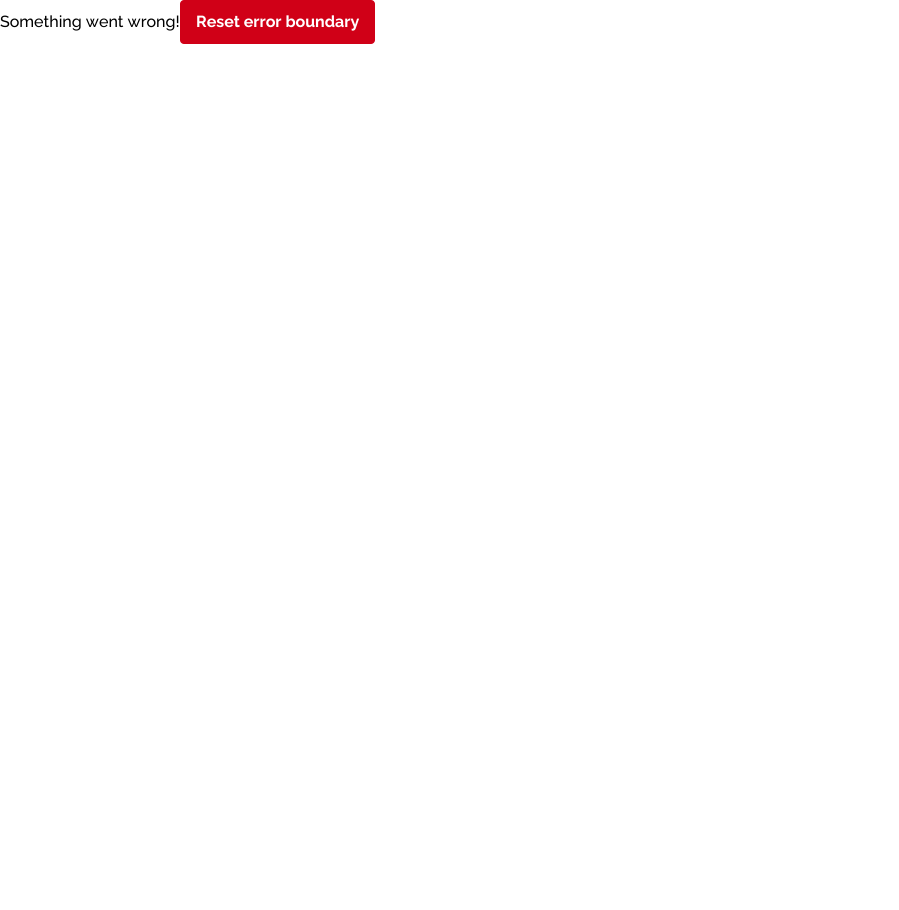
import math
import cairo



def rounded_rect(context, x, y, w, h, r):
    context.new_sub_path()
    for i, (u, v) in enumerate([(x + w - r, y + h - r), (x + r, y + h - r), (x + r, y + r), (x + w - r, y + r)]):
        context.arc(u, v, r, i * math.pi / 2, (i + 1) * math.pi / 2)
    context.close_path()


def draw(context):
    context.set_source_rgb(1, 1, 1)
    context.paint()
    context.set_source_rgb(208 / 255, 0, 23 / 255)
    rounded_rect(context, 180, 0, 195, 44, 4)
    context.fill()
    context.select_font_face("Raleway Medium")
    context.set_font_size(16)
    context.set_source_rgb(0, 0, 0)
    context.move_to(0, 27)
    context.show_text("Something went wrong!")
    context.select_font_face("Raleway", cairo.FontSlant.NORMAL, cairo.FontWeight.BOLD)
    context.set_source_rgb(1, 1, 1)
    context.move_to(196, 27)
    context.show_text("Reset error boundary")


surface = cairo.ImageSurface(cairo.Format.RGB24, 899, 910)
context = cairo.Context(surface)
options = cairo.FontOptions()
options.set_hint_metrics(cairo.HintMetrics.OFF)
options.set_hint_style(cairo.HintStyle.NONE)
context.set_font_options(options)
context.set_miter_limit(4)
draw(context)
surface.write_to_png("out.png")
